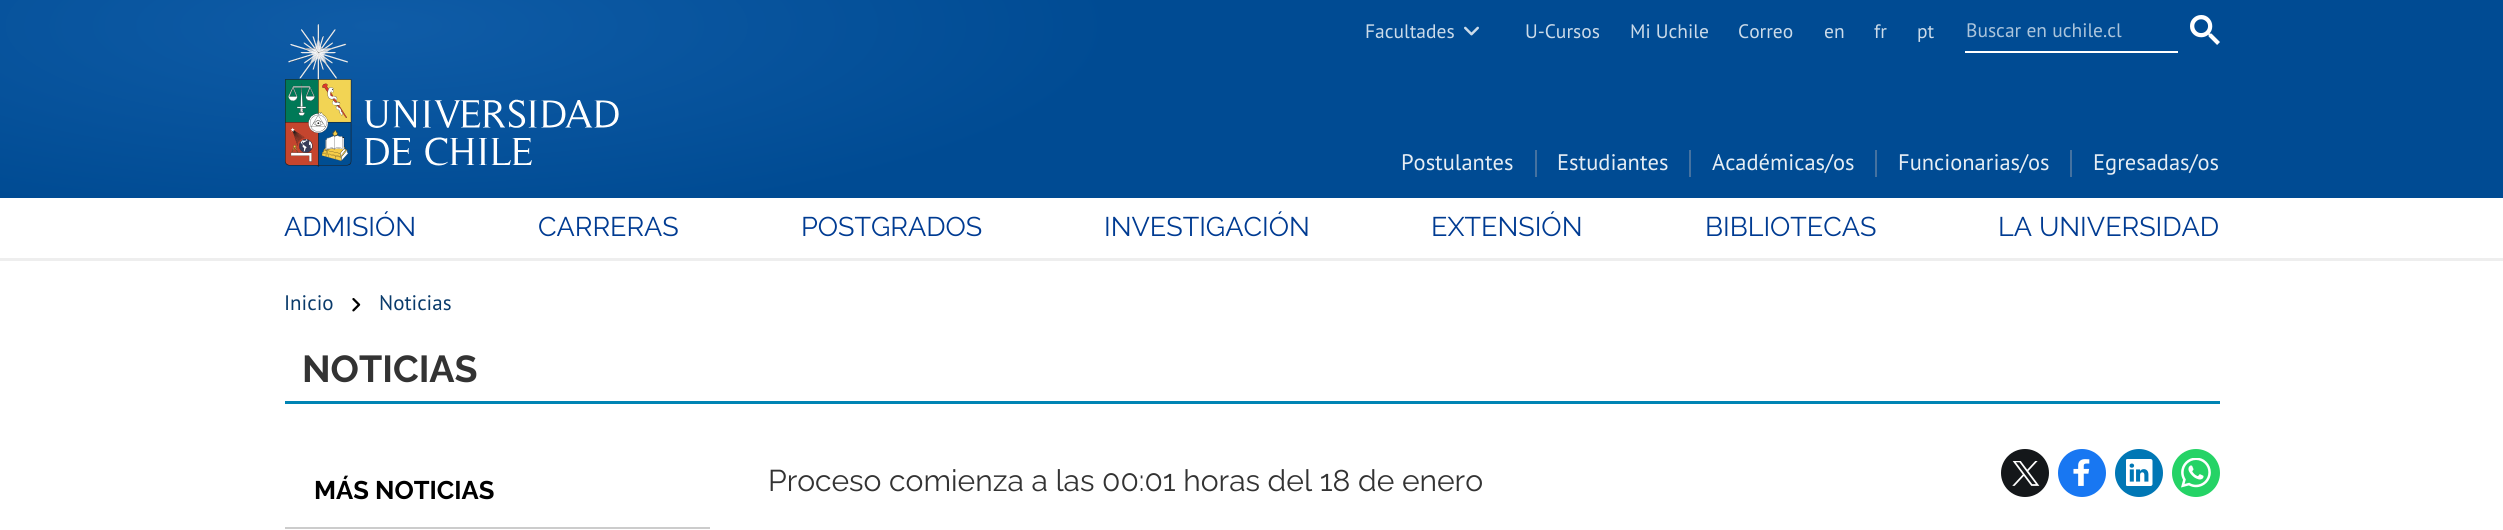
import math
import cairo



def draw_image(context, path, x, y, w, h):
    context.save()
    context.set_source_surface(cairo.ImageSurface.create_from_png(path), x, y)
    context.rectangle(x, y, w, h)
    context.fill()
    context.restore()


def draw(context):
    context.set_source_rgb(1, 1, 1)
    context.paint()
    context.set_source_rgb(0, 75 / 255, 147 / 255)
    context.rectangle(1253, 0, 1250, 198)
    context.fill()
    gradient = cairo.RadialGradient(0, 0, 0, 0, 0, 1)
    gradient.set_matrix(cairo.Matrix(1 / 1240, 0, 0, 1 / 332, -1 * 376 / 1240, -1 * 26 / 332))
    gradient.add_color_stop_rgba(0, 15 / 255, 92 / 255, 167 / 255, 1)
    gradient.add_color_stop_rgba(0.6, 0, 75 / 255, 147 / 255, 1)
    context.set_source(gradient)
    context.rectangle(0, 0, 1253, 198)
    context.fill()
    draw_image(context, "images/1.png", 1464, 26, 15, 10)
    context.set_source_rgb(1, 1, 1)
    context.rectangle(1965, 51, 213, 2)
    context.fill()
    draw_image(context, "images/2.png", 2190, 15, 30, 30)
    draw_image(context, "images/3.png", 285, 24, 334, 143)
    context.set_source_rgb(69 / 255, 114 / 255, 160 / 255)
    context.rectangle(1535, 150, 2, 27)
    context.fill()
    context.rectangle(1689, 150, 2, 27)
    context.fill()
    context.rectangle(1875, 150, 2, 27)
    context.fill()
    context.rectangle(2070, 150, 2, 27)
    context.fill()
    context.set_source_rgb(238 / 255, 238 / 255, 238 / 255)
    context.rectangle(0, 258, 2503, 3)
    context.fill()
    draw_image(context, "images/4.png", 352, 298, 9, 14)
    context.set_source_rgb(0, 132 / 255, 180 / 255)
    context.rectangle(285, 401, 1935, 3)
    context.fill()
    context.set_source_rgb(204 / 255, 204 / 255, 204 / 255)
    context.rectangle(285, 527, 425, 2)
    context.fill()
    context.set_source_rgb(20 / 255, 23 / 255, 26 / 255)
    context.arc(2025, 473, 24, 0, 2 * math.pi)
    context.fill()
    draw_image(context, "images/5.png", 2012, 461, 28, 25)
    context.set_source_rgb(24 / 255, 119 / 255, 242 / 255)
    context.arc(2082, 473, 24, 0, 2 * math.pi)
    context.fill()
    draw_image(context, "images/6.png", 2073, 459, 17, 27)
    context.set_source_rgb(0, 119 / 255, 181 / 255)
    context.arc(2139, 473, 24, 0, 2 * math.pi)
    context.fill()
    draw_image(context, "images/7.png", 2126, 459, 27, 27)
    context.set_source_rgb(37 / 255, 211 / 255, 102 / 255)
    context.arc(2196, 473, 24, 0, 2 * math.pi)
    context.fill()
    draw_image(context, "images/8.png", 2181, 458, 30, 30)
    context.select_font_face("PT Sans")
    context.set_font_size(19.5)
    context.set_source_rgb(204 / 255, 219 / 255, 233 / 255)
    context.move_to(1365, 38)
    context.show_text("Facultades")
    context.move_to(1525, 38)
    context.show_text("U-Cursos")
    context.move_to(1630, 38)
    context.show_text("Mi Uchile")
    context.move_to(1738, 38)
    context.show_text("Correo")
    context.move_to(1824, 38)
    context.show_text("en")
    context.move_to(1874, 38)
    context.show_text("fr")
    context.move_to(1917, 38)
    context.show_text("pt")
    context.set_source_rgb(171 / 255, 196 / 255, 219 / 255)
    context.move_to(1966, 37)
    context.show_text("Buscar en uchile.cl")
    context.set_font_size(22.5)
    context.set_source_rgb(230 / 255, 237 / 255, 244 / 255)
    context.move_to(1401, 170)
    context.show_text("Postulantes")
    context.move_to(1557, 170)
    context.show_text("Estudiantes")
    context.move_to(1712, 170)
    context.show_text("Académicas/os")
    context.move_to(1898, 170)
    context.show_text("Funcionarias/os")
    context.move_to(2093, 170)
    context.show_text("Egresadas/os")
    context.select_font_face("Raleway")
    context.set_font_size(27)
    context.set_source_rgb(0, 59 / 255, 146 / 255)
    context.move_to(284, 236)
    context.show_text("ADMISIÓN")
    context.move_to(538, 236)
    context.show_text("CARRERAS")
    context.move_to(801, 236)
    context.show_text("POSTGRADOS")
    context.move_to(1104, 236)
    context.show_text("INVESTIGACIÓN")
    context.move_to(1431, 236)
    context.show_text("EXTENSIÓN")
    context.move_to(1705, 236)
    context.show_text("BIBLIOTECAS")
    context.move_to(1998, 236)
    context.show_text("LA UNIVERSIDAD")
    context.select_font_face("PT Sans")
    context.set_font_size(21)
    context.set_source_rgb(10 / 255, 59 / 255, 107 / 255)
    context.move_to(284, 310)
    context.show_text("Inicio")
    context.move_to(379, 310)
    context.show_text("Noticias")
    context.select_font_face("Raleway", cairo.FontSlant.NORMAL, cairo.FontWeight.BOLD)
    context.set_font_size(37.5)
    context.set_source_rgb(51 / 255, 51 / 255, 51 / 255)
    context.move_to(302, 382)
    context.show_text("NOTICIAS")
    context.set_font_size(25.5)
    context.set_source_rgb(0, 0, 0)
    context.move_to(314, 499)
    context.show_text("MÁS NOTICIAS")
    context.select_font_face("Raleway")
    context.set_font_size(30)
    context.set_source_rgb(51 / 255, 51 / 255, 51 / 255)
    context.move_to(768, 491)
    context.show_text("Proceso comienza a las 00:01 horas del 18 de enero")


surface = cairo.ImageSurface(cairo.Format.RGB24, 2503, 530)
context = cairo.Context(surface)
options = cairo.FontOptions()
options.set_hint_metrics(cairo.HintMetrics.OFF)
options.set_hint_style(cairo.HintStyle.NONE)
context.set_font_options(options)
context.set_miter_limit(4)
draw(context)
surface.write_to_png("out.png")
